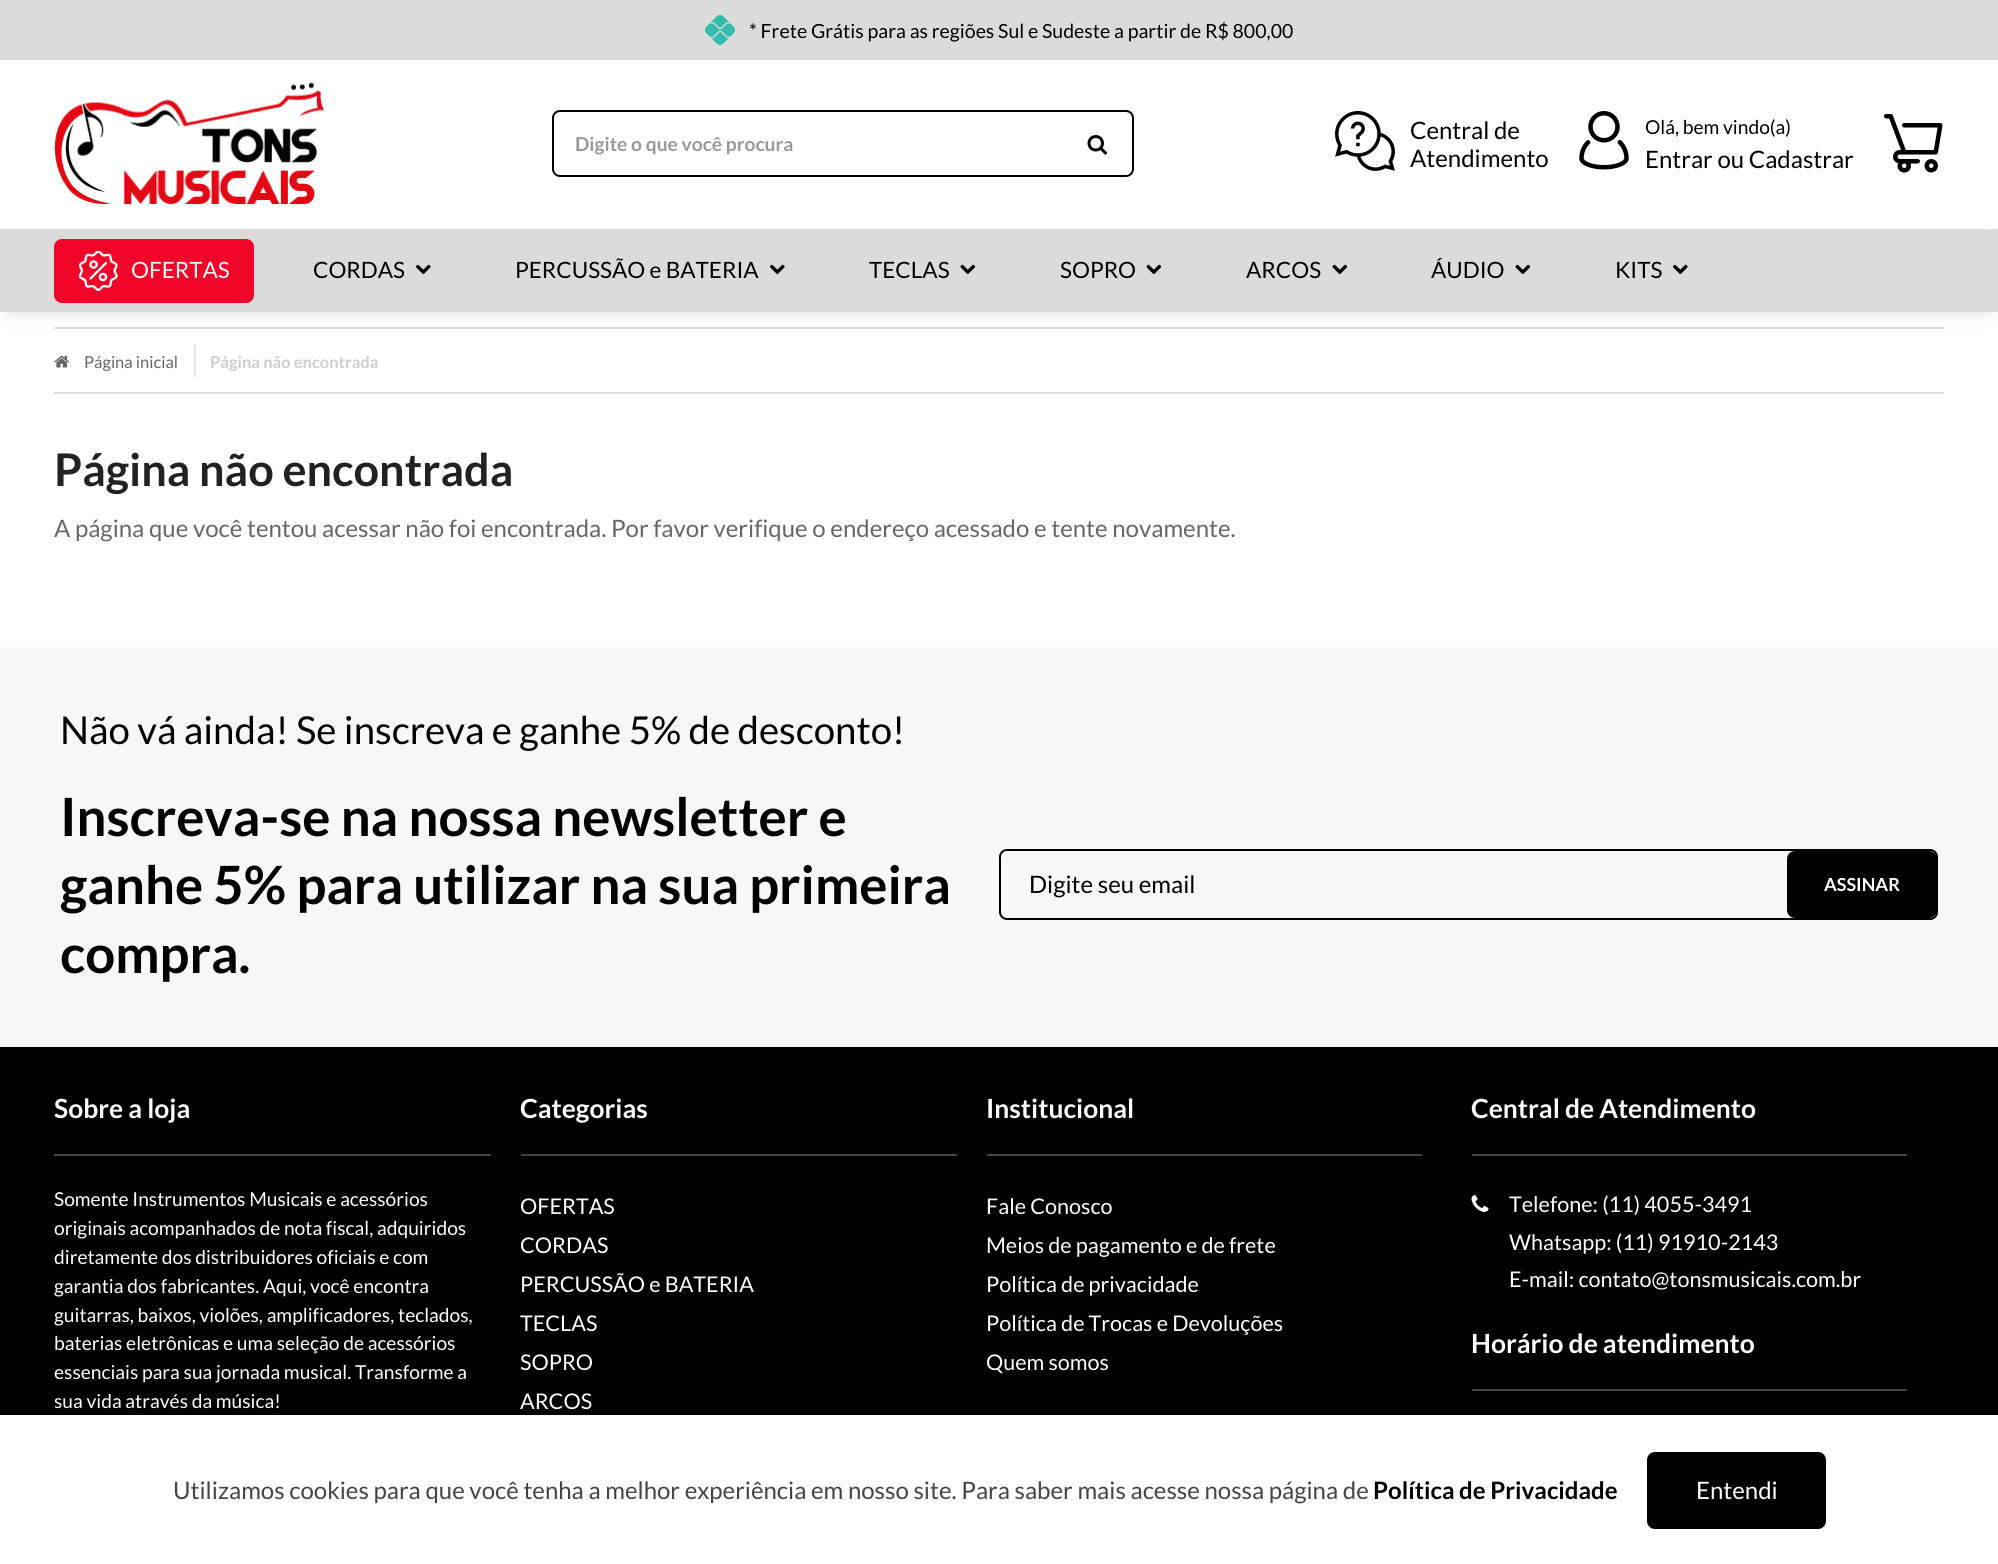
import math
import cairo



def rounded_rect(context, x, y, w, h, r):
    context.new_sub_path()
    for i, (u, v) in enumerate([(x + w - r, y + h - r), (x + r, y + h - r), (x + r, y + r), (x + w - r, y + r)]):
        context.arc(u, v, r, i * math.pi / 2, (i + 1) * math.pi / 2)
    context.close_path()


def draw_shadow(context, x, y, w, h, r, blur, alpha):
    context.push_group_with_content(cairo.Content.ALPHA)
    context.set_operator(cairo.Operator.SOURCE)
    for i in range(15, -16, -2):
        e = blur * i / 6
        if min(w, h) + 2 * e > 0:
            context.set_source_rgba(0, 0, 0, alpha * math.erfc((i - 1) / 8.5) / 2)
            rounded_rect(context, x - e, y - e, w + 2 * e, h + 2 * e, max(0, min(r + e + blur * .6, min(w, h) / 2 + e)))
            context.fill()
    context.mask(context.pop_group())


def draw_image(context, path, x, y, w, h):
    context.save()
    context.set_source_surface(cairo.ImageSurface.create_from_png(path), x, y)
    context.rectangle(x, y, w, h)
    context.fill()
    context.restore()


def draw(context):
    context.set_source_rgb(1, 1, 1)
    context.paint()
    context.set_source_rgb(219 / 255, 219 / 255, 219 / 255)
    context.rectangle(0, 0, 1998, 60)
    context.fill()
    draw_image(context, "images/1.png", 705, 15, 30, 30)
    draw_image(context, "images/2.png", 54, 82, 270, 122)
    rounded_rect(context, 553, 111, 580, 65, 7)
    context.set_source_rgb(0, 0, 0)
    context.stroke()
    draw_image(context, "images/3.png", 1087, 135, 20, 20)
    draw_image(context, "images/4.png", 1335, 111, 60, 60)
    draw_image(context, "images/5.png", 1579, 111, 50, 59)
    draw_image(context, "images/6.png", 1884, 114, 59, 59)
    context.set_source_rgb(221 / 255, 221 / 255, 221 / 255)
    draw_shadow(context, 9, 243, 1980, 68, 0, 9, 1)
    context.set_source_rgb(219 / 255, 219 / 255, 219 / 255)
    context.rectangle(0, 229, 1998, 83)
    context.fill()
    context.set_source_rgb(241 / 255, 6 / 255, 42 / 255)
    rounded_rect(context, 54, 239, 200, 64, 8)
    context.fill()
    draw_image(context, "images/7.png", 78, 251, 40, 40)
    draw_image(context, "images/8.png", 416, 264, 15, 10)
    draw_image(context, "images/8.png", 770, 264, 15, 10)
    draw_image(context, "images/9.png", 960, 264, 16, 10)
    draw_image(context, "images/9.png", 1146, 264, 16, 10)
    draw_image(context, "images/9.png", 1332, 264, 16, 10)
    draw_image(context, "images/9.png", 1515, 264, 16, 10)
    draw_image(context, "images/8.png", 1673, 264, 15, 10)
    context.set_source_rgb(221 / 255, 221 / 255, 221 / 255)
    context.rectangle(54, 327, 1890, 2)
    context.fill()
    context.set_source_rgb(222 / 255, 222 / 255, 222 / 255)
    context.rectangle(54, 392, 1890, 2)
    context.fill()
    draw_image(context, "images/10.png", 54, 355, 15, 13)
    context.set_source_rgb(230 / 255, 230 / 255, 230 / 255)
    context.rectangle(194, 344, 2, 33)
    context.fill()
    context.set_source_rgb(248 / 255, 247 / 255, 247 / 255)
    context.rectangle(0, 647, 1998, 400)
    context.fill()
    rounded_rect(context, 1000, 850, 937, 69, 7)
    context.set_source_rgb(0, 0, 0)
    context.stroke()
    rounded_rect(context, 1787, 851, 150, 67, 8)
    context.fill()
    context.rectangle(0, 1047, 1998, 368)
    context.fill()
    context.set_source_rgb(68 / 255, 68 / 255, 68 / 255)
    context.rectangle(54, 1154, 437, 2)
    context.fill()
    context.rectangle(521, 1154, 436, 2)
    context.fill()
    context.rectangle(987, 1154, 435, 2)
    context.fill()
    context.rectangle(1472, 1154, 435, 2)
    context.fill()
    draw_image(context, "images/11.png", 1471, 1195, 18, 17)
    context.rectangle(1472, 1389, 435, 2)
    context.fill()
    context.set_source_rgb(0, 0, 0)
    draw_shadow(context, -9, 1415, 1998, 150, 0, 9, 0.2)
    context.set_source_rgb(1, 1, 1)
    context.rectangle(0, 1415, 1998, 149)
    context.fill()
    context.set_source_rgb(0, 0, 0)
    rounded_rect(context, 1647, 1452, 179, 77, 8)
    context.fill()
    context.select_font_face("Lato")
    context.set_font_size(19.5)
    context.move_to(749, 38)
    context.show_text("* Frete Grátis para as regiões Sul e Sudeste a partir de R$ 800,00")
    context.select_font_face("Lato", cairo.FontSlant.NORMAL, cairo.FontWeight.BOLD)
    context.set_font_size(19.2)
    context.set_source_rgb(153 / 255, 153 / 255, 153 / 255)
    context.move_to(575, 151)
    context.show_text("Digite o que você procura")
    context.select_font_face("Lato")
    context.set_font_size(24)
    context.set_source_rgb(0, 0, 0)
    context.move_to(1410, 139)
    context.show_text("Central de")
    context.move_to(1410, 167)
    context.show_text("Atendimento")
    context.set_font_size(19.2)
    context.move_to(1645, 134)
    context.show_text("Olá, bem vindo(a)")
    context.set_font_size(24)
    context.move_to(1645, 168)
    context.show_text("Entrar ou Cadastrar")
    context.set_font_size(22.5)
    context.set_source_rgb(252 / 255, 248 / 255, 248 / 255)
    context.move_to(131, 278)
    context.show_text("OFERTAS")
    context.set_source_rgb(0, 0, 0)
    context.move_to(313, 278)
    context.show_text("CORDAS")
    context.move_to(515, 278)
    context.show_text("PERCUSSÃO e BATERIA")
    context.move_to(869, 278)
    context.show_text("TECLAS")
    context.move_to(1060, 278)
    context.show_text("SOPRO")
    context.move_to(1246, 278)
    context.show_text("ARCOS")
    context.move_to(1431, 278)
    context.show_text("ÁUDIO")
    context.move_to(1615, 278)
    context.show_text("KITS")
    context.set_font_size(16.5)
    context.set_source_rgb(102 / 255, 102 / 255, 102 / 255)
    context.move_to(84, 368)
    context.show_text("Página inicial")
    context.select_font_face("Lato", cairo.FontSlant.NORMAL, cairo.FontWeight.BOLD)
    context.set_source_rgb(205 / 255, 205 / 255, 205 / 255)
    context.move_to(210, 368)
    context.show_text("Página não encontrada")
    context.set_font_size(45)
    context.set_source_rgb(34 / 255, 34 / 255, 34 / 255)
    context.move_to(54, 486)
    context.show_text("Página não encontrada")
    context.select_font_face("Lato")
    context.set_font_size(24)
    context.set_source_rgb(102 / 255, 102 / 255, 102 / 255)
    context.move_to(54, 537)
    context.show_text("A página que você tentou acessar não foi encontrada. Por favor verifique o endereço acessado e tente novamente.")
    context.set_font_size(38.4)
    context.set_source_rgb(0, 0, 0)
    context.move_to(60, 744)
    context.show_text("Não vá ainda! Se inscreva e ganhe 5% de desconto!")
    context.select_font_face("Lato", cairo.FontSlant.NORMAL, cairo.FontWeight.BOLD)
    context.set_font_size(52.75)
    context.move_to(60, 836)
    context.show_text("Inscreva-se na nossa newsletter e")
    context.move_to(60, 904)
    context.show_text("ganhe 5% para utilizar na sua primeira")
    context.move_to(60, 973)
    context.show_text("compra.")
    context.select_font_face("Lato")
    context.set_font_size(24)
    context.move_to(1029, 893)
    context.show_text("Digite seu email")
    context.select_font_face("Lato", cairo.FontSlant.NORMAL, cairo.FontWeight.BOLD)
    context.set_font_size(18)
    context.set_source_rgb(1, 1, 1)
    context.move_to(1824, 891)
    context.show_text("ASSINAR")
    context.set_font_size(26.4)
    context.move_to(54, 1118)
    context.show_text("Sobre a loja")
    context.select_font_face("Lato")
    context.set_font_size(19.2)
    context.move_to(54, 1206)
    context.show_text("Somente Instrumentos Musicais e acessórios")
    context.move_to(54, 1235)
    context.show_text("originais acompanhados de nota fiscal, adquiridos")
    context.move_to(54, 1264)
    context.show_text("diretamente dos distribuidores oficiais e com")
    context.move_to(54, 1293)
    context.show_text("garantia dos fabricantes. Aqui, você encontra")
    context.move_to(54, 1322)
    context.show_text("guitarras, baixos, violões, amplificadores, teclados,")
    context.move_to(54, 1350)
    context.show_text("baterias eletrônicas e uma seleção de acessórios")
    context.move_to(54, 1379)
    context.show_text("essenciais para sua jornada musical. Transforme a")
    context.move_to(54, 1408)
    context.show_text("sua vida através da música!")
    context.select_font_face("Lato", cairo.FontSlant.NORMAL, cairo.FontWeight.BOLD)
    context.set_font_size(26.4)
    context.move_to(520, 1118)
    context.show_text("Categorias")
    context.select_font_face("Lato")
    context.set_font_size(21.6)
    context.move_to(520, 1214)
    context.show_text("OFERTAS")
    context.move_to(520, 1253)
    context.show_text("CORDAS")
    context.move_to(520, 1292)
    context.show_text("PERCUSSÃO e BATERIA")
    context.move_to(520, 1331)
    context.show_text("TECLAS")
    context.move_to(520, 1370)
    context.show_text("SOPRO")
    context.move_to(520, 1409)
    context.show_text("ARCOS")
    context.select_font_face("Lato", cairo.FontSlant.NORMAL, cairo.FontWeight.BOLD)
    context.set_font_size(26.4)
    context.move_to(986, 1118)
    context.show_text("Institucional")
    context.select_font_face("Lato")
    context.set_font_size(21.6)
    context.move_to(986, 1214)
    context.show_text("Fale Conosco")
    context.move_to(986, 1253)
    context.show_text("Meios de pagamento e de frete")
    context.move_to(986, 1292)
    context.show_text("Política de privacidade")
    context.move_to(986, 1331)
    context.show_text("Política de Trocas e Devoluções")
    context.move_to(986, 1370)
    context.show_text("Quem somos")
    context.select_font_face("Lato", cairo.FontSlant.NORMAL, cairo.FontWeight.BOLD)
    context.set_font_size(26.4)
    context.move_to(1471, 1118)
    context.show_text("Central de Atendimento")
    context.select_font_face("Lato")
    context.set_font_size(21.6)
    context.move_to(1509, 1212)
    context.show_text("Telefone: (11) 4055-3491")
    context.move_to(1509, 1250)
    context.show_text("Whatsapp: (11) 91910-2143")
    context.move_to(1509, 1287)
    context.show_text("E-mail: contato@tonsmusicais.com.br")
    context.select_font_face("Lato", cairo.FontSlant.NORMAL, cairo.FontWeight.BOLD)
    context.set_font_size(26.4)
    context.move_to(1471, 1353)
    context.show_text("Horário de atendimento")
    context.select_font_face("Lato")
    context.set_font_size(24)
    context.set_source_rgb(68 / 255, 68 / 255, 68 / 255)
    context.move_to(173, 1499)
    context.show_text("Utilizamos cookies para que você tenha a melhor experiência em nosso site. Para saber mais acesse nossa página de")
    context.select_font_face("Lato", cairo.FontSlant.NORMAL, cairo.FontWeight.BOLD)
    context.set_source_rgb(0, 0, 0)
    context.move_to(1373, 1499)
    context.show_text("Política de Privacidade")
    context.select_font_face("Lato")
    context.set_source_rgb(1, 1, 1)
    context.move_to(1696, 1499)
    context.show_text("Entendi")


surface = cairo.ImageSurface(cairo.Format.RGB24, 1998, 1564)
context = cairo.Context(surface)
options = cairo.FontOptions()
options.set_hint_metrics(cairo.HintMetrics.OFF)
options.set_hint_style(cairo.HintStyle.NONE)
context.set_font_options(options)
context.set_miter_limit(4)
draw(context)
surface.write_to_png("out.png")
